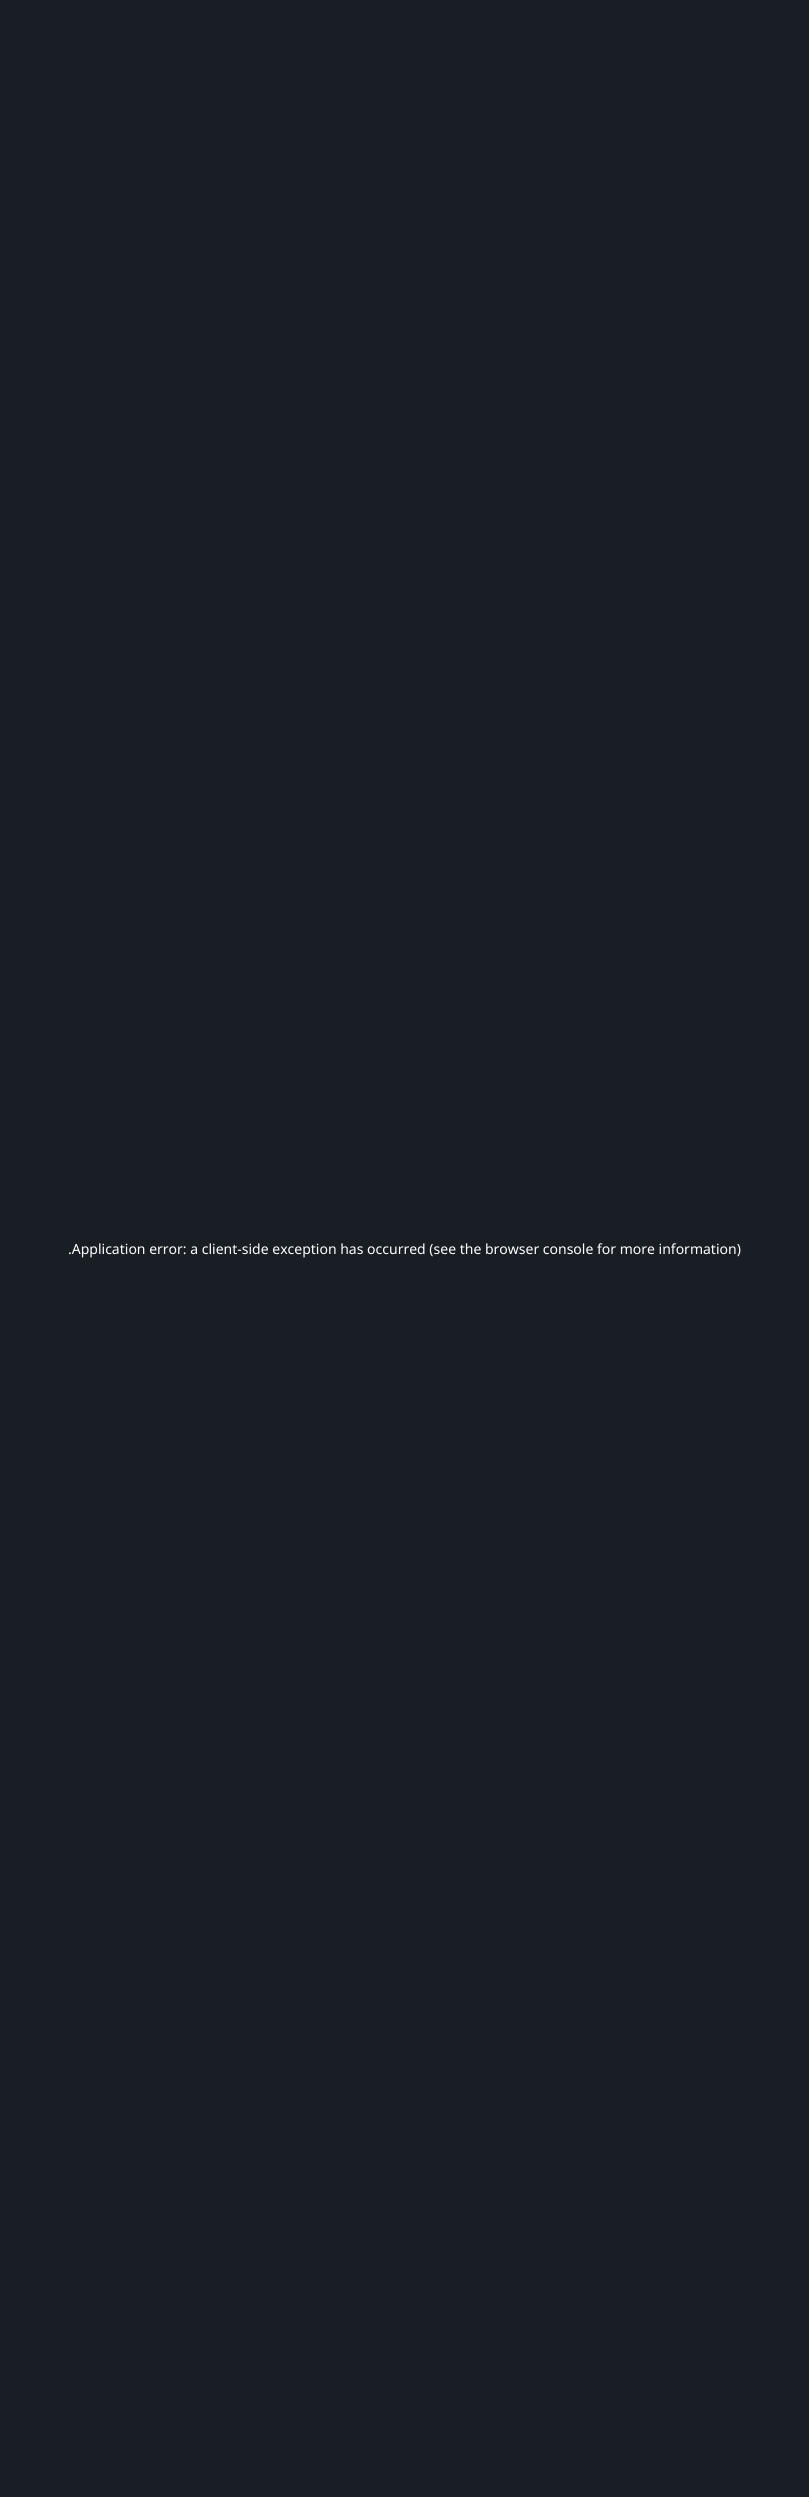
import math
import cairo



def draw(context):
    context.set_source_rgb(24 / 255, 30 / 255, 36 / 255)
    context.paint()
    context.select_font_face("Noto Sans")
    context.set_font_size(14)
    context.set_source_rgb(1, 1, 1)
    context.move_to(68, 1254)
    context.show_text(".Application error: a client-side exception has occurred (see the browser console for more information)")


surface = cairo.ImageSurface(cairo.Format.RGB24, 809, 2497)
context = cairo.Context(surface)
options = cairo.FontOptions()
options.set_hint_metrics(cairo.HintMetrics.OFF)
options.set_hint_style(cairo.HintStyle.NONE)
context.set_font_options(options)
context.set_miter_limit(4)
draw(context)
surface.write_to_png("out.png")
